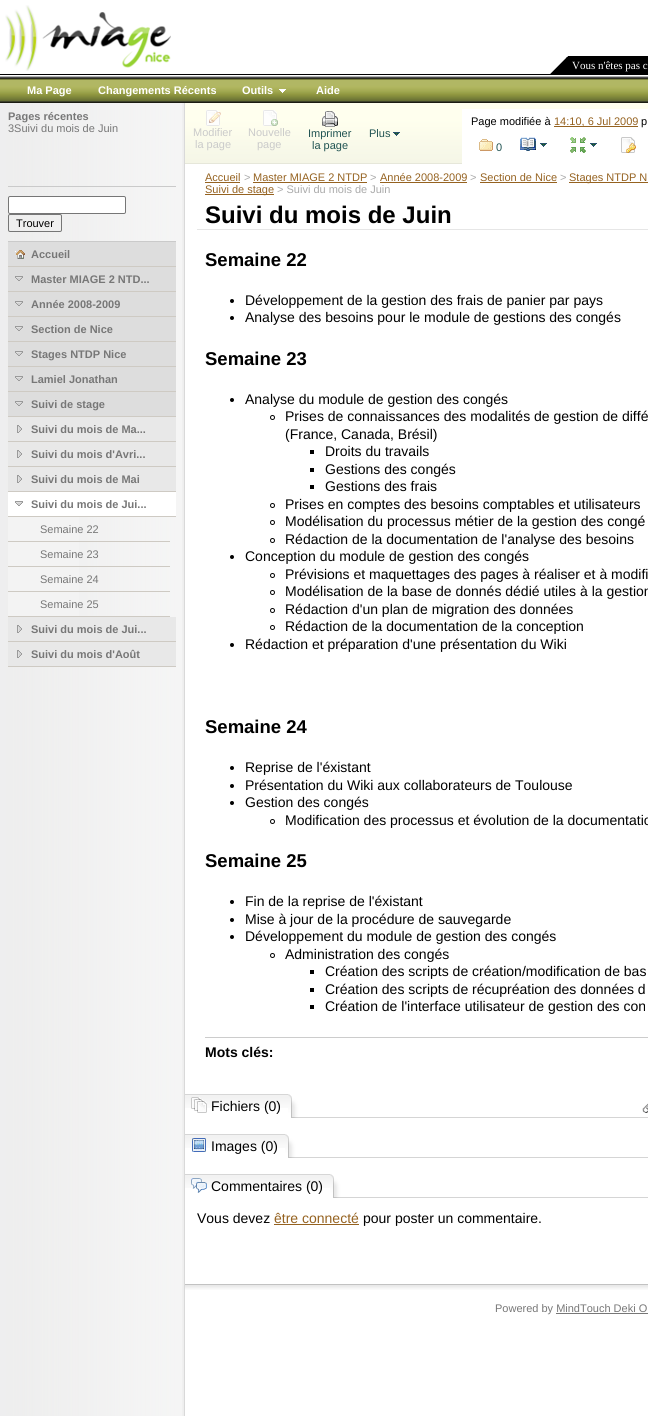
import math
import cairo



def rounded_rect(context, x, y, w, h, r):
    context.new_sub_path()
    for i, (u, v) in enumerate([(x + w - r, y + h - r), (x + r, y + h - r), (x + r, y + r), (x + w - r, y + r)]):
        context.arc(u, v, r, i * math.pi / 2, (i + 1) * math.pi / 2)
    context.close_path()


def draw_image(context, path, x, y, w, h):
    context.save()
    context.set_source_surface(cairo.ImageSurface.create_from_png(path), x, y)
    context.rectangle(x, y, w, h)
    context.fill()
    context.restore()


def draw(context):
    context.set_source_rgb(1, 1, 1)
    context.paint()
    draw_image(context, "images/1.png", 0, 1415, 185, 1)
    draw_image(context, "images/2.png", 0, 103, 185, 1312)
    draw_image(context, "images/3.png", 5, 5, 166, 66)
    context.set_source_rgb(0, 0, 0)
    context.rectangle(568, 56, 80, 18)
    context.fill()
    draw_image(context, "images/4.png", 550, 56, 18, 18)
    draw_image(context, "images/5.png", 0, 74, 648, 29)
    draw_image(context, "images/6.png", 279, 89, 7, 4)
    context.set_source_rgb(202 / 255, 202 / 255, 202 / 255)
    context.rectangle(8, 186, 168, 1)
    context.fill()
    context.rectangle(8, 241, 168, 1)
    context.fill()
    context.set_source_rgb(1, 1, 1)
    rounded_rect(context, 8.5, 196.5, 117, 17, 1.5)
    context.fill_preserve()
    context.set_source_rgb(118 / 255, 118 / 255, 118 / 255)
    context.set_line_width(1)
    context.stroke()
    rounded_rect(context, 8.5, 214.5, 53, 17, 1.5)
    context.stroke()
    context.set_source_rgb(221 / 255, 221 / 255, 221 / 255)
    context.rectangle(8, 242, 168, 24)
    context.fill()
    context.set_source_rgb(206 / 255, 202 / 255, 195 / 255)
    context.rectangle(8, 266, 168, 1)
    context.fill()
    draw_image(context, "images/7.png", 15, 250, 10, 9)
    context.set_source_rgb(221 / 255, 221 / 255, 221 / 255)
    context.rectangle(8, 267, 168, 24)
    context.fill()
    context.set_source_rgb(206 / 255, 202 / 255, 195 / 255)
    context.rectangle(8, 291, 168, 1)
    context.fill()
    draw_image(context, "images/8.png", 15, 276, 8, 5)
    context.set_source_rgb(221 / 255, 221 / 255, 221 / 255)
    context.rectangle(8, 292, 168, 24)
    context.fill()
    context.set_source_rgb(206 / 255, 202 / 255, 195 / 255)
    context.rectangle(8, 316, 168, 1)
    context.fill()
    draw_image(context, "images/8.png", 15, 301, 8, 5)
    context.set_source_rgb(221 / 255, 221 / 255, 221 / 255)
    context.rectangle(8, 317, 168, 24)
    context.fill()
    context.set_source_rgb(206 / 255, 202 / 255, 195 / 255)
    context.rectangle(8, 341, 168, 1)
    context.fill()
    draw_image(context, "images/8.png", 15, 326, 8, 5)
    context.set_source_rgb(221 / 255, 221 / 255, 221 / 255)
    context.rectangle(8, 342, 168, 24)
    context.fill()
    context.set_source_rgb(206 / 255, 202 / 255, 195 / 255)
    context.rectangle(8, 366, 168, 1)
    context.fill()
    draw_image(context, "images/8.png", 15, 351, 8, 5)
    context.set_source_rgb(221 / 255, 221 / 255, 221 / 255)
    context.rectangle(8, 367, 168, 24)
    context.fill()
    context.set_source_rgb(206 / 255, 202 / 255, 195 / 255)
    context.rectangle(8, 391, 168, 1)
    context.fill()
    draw_image(context, "images/8.png", 15, 376, 8, 5)
    context.set_source_rgb(221 / 255, 221 / 255, 221 / 255)
    context.rectangle(8, 392, 168, 24)
    context.fill()
    context.set_source_rgb(206 / 255, 202 / 255, 195 / 255)
    context.rectangle(8, 416, 168, 1)
    context.fill()
    draw_image(context, "images/8.png", 15, 401, 8, 5)
    context.set_source_rgb(232 / 255, 232 / 255, 232 / 255)
    context.rectangle(8, 417, 168, 24)
    context.fill()
    context.set_source_rgb(206 / 255, 202 / 255, 195 / 255)
    context.rectangle(8, 441, 168, 1)
    context.fill()
    draw_image(context, "images/9.png", 17, 425, 5, 8)
    context.set_source_rgb(232 / 255, 232 / 255, 232 / 255)
    context.rectangle(8, 442, 168, 24)
    context.fill()
    context.set_source_rgb(206 / 255, 202 / 255, 195 / 255)
    context.rectangle(8, 466, 168, 1)
    context.fill()
    draw_image(context, "images/9.png", 17, 450, 5, 8)
    context.set_source_rgb(232 / 255, 232 / 255, 232 / 255)
    context.rectangle(8, 467, 168, 24)
    context.fill()
    context.set_source_rgb(206 / 255, 202 / 255, 195 / 255)
    context.rectangle(8, 491, 168, 1)
    context.fill()
    draw_image(context, "images/9.png", 17, 475, 5, 8)
    context.set_source_rgb(1, 1, 1)
    context.rectangle(8, 492, 168, 24)
    context.fill()
    context.set_source_rgb(206 / 255, 202 / 255, 195 / 255)
    context.rectangle(8, 516, 168, 1)
    context.fill()
    draw_image(context, "images/10.png", 15, 501, 8, 5)
    context.set_source_rgb(243 / 255, 243 / 255, 243 / 255)
    context.rectangle(8, 517, 71, 24)
    context.fill()
    context.set_source_rgb(206 / 255, 202 / 255, 195 / 255)
    context.rectangle(8, 541, 162, 1)
    context.fill()
    context.set_source_rgb(243 / 255, 243 / 255, 243 / 255)
    context.rectangle(8, 542, 71, 24)
    context.fill()
    context.set_source_rgb(206 / 255, 202 / 255, 195 / 255)
    context.rectangle(8, 566, 162, 1)
    context.fill()
    context.set_source_rgb(243 / 255, 243 / 255, 243 / 255)
    context.rectangle(8, 567, 71, 24)
    context.fill()
    context.set_source_rgb(206 / 255, 202 / 255, 195 / 255)
    context.rectangle(8, 591, 162, 1)
    context.fill()
    context.set_source_rgb(243 / 255, 243 / 255, 243 / 255)
    context.rectangle(8, 592, 71, 24)
    context.fill()
    context.set_source_rgb(206 / 255, 202 / 255, 195 / 255)
    context.rectangle(8, 616, 162, 1)
    context.fill()
    context.set_source_rgb(232 / 255, 232 / 255, 232 / 255)
    context.rectangle(8, 617, 168, 24)
    context.fill()
    context.set_source_rgb(206 / 255, 202 / 255, 195 / 255)
    context.rectangle(8, 641, 168, 1)
    context.fill()
    draw_image(context, "images/9.png", 17, 625, 5, 8)
    context.set_source_rgb(232 / 255, 232 / 255, 232 / 255)
    context.rectangle(8, 642, 168, 24)
    context.fill()
    context.set_source_rgb(206 / 255, 202 / 255, 195 / 255)
    context.rectangle(8, 666, 168, 1)
    context.fill()
    draw_image(context, "images/9.png", 17, 650, 5, 8)
    draw_image(context, "images/11.png", 185, 103, 463, 61)
    draw_image(context, "images/12.png", 206, 110, 15, 16)
    draw_image(context, "images/13.png", 263, 110, 15, 16)
    draw_image(context, "images/14.png", 322, 111, 16, 16)
    draw_image(context, "images/15.png", 393, 132, 7, 4)
    context.set_source_rgb(1, 1, 1)
    context.rectangle(462, 109, 186, 55)
    context.fill()
    context.set_source_rgb(149 / 255, 98 / 255, 32 / 255)
    context.rectangle(554, 126, 84, 1)
    context.fill()
    draw_image(context, "images/16.png", 479, 139, 14, 12)
    draw_image(context, "images/17.png", 520, 137, 16, 14)
    draw_image(context, "images/18.png", 540, 143, 7, 4)
    draw_image(context, "images/19.png", 570, 137, 16, 16)
    draw_image(context, "images/18.png", 590, 143, 7, 4)
    draw_image(context, "images/20.png", 621, 137, 15, 16)
    context.rectangle(205, 182, 35, 1)
    context.fill()
    context.rectangle(253, 182, 114, 1)
    context.fill()
    context.rectangle(380, 182, 87, 1)
    context.fill()
    context.rectangle(480, 182, 77, 1)
    context.fill()
    context.rectangle(569, 182, 79, 1)
    context.fill()
    context.rectangle(205, 194, 69, 1)
    context.fill()
    context.set_source_rgb(230 / 255, 230 / 255, 230 / 255)
    context.rectangle(197, 229, 451, 1)
    context.fill()
    context.set_source_rgb(0, 0, 0)
    context.arc(232, 301, 2, 0, 2 * math.pi)
    context.fill()
    context.arc(232, 318, 2, 0, 2 * math.pi)
    context.fill()
    context.arc(232, 400, 2, 0, 2 * math.pi)
    context.fill()
    context.arc(272.5, 417.5, 2, 0, 2 * math.pi)
    context.stroke()
    context.rectangle(310, 450, 4, 4)
    context.fill()
    context.rectangle(310, 468, 4, 4)
    context.fill()
    context.rectangle(310, 485, 4, 4)
    context.fill()
    context.arc(272.5, 505.5, 2, 0, 2 * math.pi)
    context.stroke()
    context.arc(272.5, 522.5, 2, 0, 2 * math.pi)
    context.stroke()
    context.arc(272.5, 540.5, 2, 0, 2 * math.pi)
    context.stroke()
    context.arc(232, 557, 2, 0, 2 * math.pi)
    context.fill()
    context.arc(272.5, 575.5, 2, 0, 2 * math.pi)
    context.stroke()
    context.arc(272.5, 592.5, 2, 0, 2 * math.pi)
    context.stroke()
    context.arc(272.5, 610.5, 2, 0, 2 * math.pi)
    context.stroke()
    context.arc(272.5, 627.5, 2, 0, 2 * math.pi)
    context.stroke()
    context.arc(232, 645, 2, 0, 2 * math.pi)
    context.fill()
    context.arc(232, 768, 2, 0, 2 * math.pi)
    context.fill()
    context.arc(232, 786, 2, 0, 2 * math.pi)
    context.fill()
    context.arc(232, 803, 2, 0, 2 * math.pi)
    context.fill()
    context.arc(272.5, 821.5, 2, 0, 2 * math.pi)
    context.stroke()
    context.arc(232, 902, 2, 0, 2 * math.pi)
    context.fill()
    context.arc(232, 920, 2, 0, 2 * math.pi)
    context.fill()
    context.arc(232, 937, 2, 0, 2 * math.pi)
    context.fill()
    context.arc(272.5, 955.5, 2, 0, 2 * math.pi)
    context.stroke()
    context.rectangle(310, 970, 4, 4)
    context.fill()
    context.rectangle(310, 988, 4, 4)
    context.fill()
    context.rectangle(310, 1005, 4, 4)
    context.fill()
    context.set_source_rgb(204 / 255, 204 / 255, 204 / 255)
    context.rectangle(205, 1037, 443, 1)
    context.fill()
    context.set_source_rgb(213 / 255, 213 / 255, 213 / 255)
    context.rectangle(299, 1117, 349, 1)
    context.fill()
    draw_image(context, "images/21.png", 185, 1094, 103, 14)
    draw_image(context, "images/22.png", 288, 1094, 11, 24)
    draw_image(context, "images/23.png", 191, 1097, 16, 16)
    draw_image(context, "images/24.png", 642, 1103, 6, 10)
    context.rectangle(296, 1157, 352, 1)
    context.fill()
    draw_image(context, "images/25.png", 185, 1134, 100, 14)
    draw_image(context, "images/22.png", 285, 1134, 11, 24)
    draw_image(context, "images/26.png", 192, 1138, 14, 14)
    context.rectangle(341, 1197, 307, 1)
    context.fill()
    draw_image(context, "images/27.png", 185, 1174, 145, 14)
    draw_image(context, "images/22.png", 330, 1174, 11, 24)
    draw_image(context, "images/28.png", 191, 1178, 16, 15)
    context.set_source_rgb(149 / 255, 98 / 255, 32 / 255)
    context.rectangle(274, 1224, 85, 1)
    context.fill()
    draw_image(context, "images/29.png", 185, 1284, 463, 6)
    context.set_source_rgb(119 / 255, 119 / 255, 119 / 255)
    context.rectangle(556, 1313, 92, 1)
    context.fill()
    context.select_font_face("Liberation Serif")
    context.set_font_size(11)
    context.set_source_rgb(1, 1, 1)
    context.move_to(572, 69)
    context.show_text("Vous n'êtes pas c")
    context.select_font_face("Liberation Sans", cairo.FontSlant.NORMAL, cairo.FontWeight.BOLD)
    context.move_to(27, 94)
    context.show_text("Ma Page")
    context.move_to(98, 94)
    context.show_text("Changements Récents")
    context.move_to(242, 94)
    context.show_text("Outils")
    context.move_to(316, 94)
    context.show_text("Aide")
    context.set_source_rgb(119 / 255, 119 / 255, 119 / 255)
    context.move_to(8, 120)
    context.show_text("Pages récentes")
    context.select_font_face("Liberation Sans")
    context.move_to(8, 132)
    context.show_text("3Suivi du mois de Juin")
    context.set_source_rgb(0, 0, 0)
    context.move_to(16, 227)
    context.show_text("Trouver")
    context.select_font_face("Liberation Sans", cairo.FontSlant.NORMAL, cairo.FontWeight.BOLD)
    context.set_source_rgb(119 / 255, 119 / 255, 119 / 255)
    context.move_to(31, 258)
    context.show_text("Accueil")
    context.move_to(31, 283)
    context.show_text("Master MIAGE 2 NTD...")
    context.move_to(31, 308)
    context.show_text("Année 2008-2009")
    context.move_to(31, 333)
    context.show_text("Section de Nice")
    context.move_to(31, 358)
    context.show_text("Stages NTDP Nice")
    context.move_to(31, 383)
    context.show_text("Lamiel Jonathan")
    context.move_to(31, 408)
    context.show_text("Suivi de stage")
    context.move_to(31, 433)
    context.show_text("Suivi du mois de Ma...")
    context.move_to(31, 458)
    context.show_text("Suivi du mois d'Avri...")
    context.move_to(31, 483)
    context.show_text("Suivi du mois de Mai")
    context.move_to(31, 508)
    context.show_text("Suivi du mois de Jui...")
    context.select_font_face("Liberation Sans")
    context.move_to(40, 533)
    context.show_text("Semaine 22")
    context.move_to(40, 558)
    context.show_text("Semaine 23")
    context.move_to(40, 583)
    context.show_text("Semaine 24")
    context.move_to(40, 608)
    context.show_text("Semaine 25")
    context.select_font_face("Liberation Sans", cairo.FontSlant.NORMAL, cairo.FontWeight.BOLD)
    context.move_to(31, 633)
    context.show_text("Suivi du mois de Jui...")
    context.move_to(31, 658)
    context.show_text("Suivi du mois d'Août")
    context.select_font_face("Liberation Sans")
    context.set_source_rgb(202 / 255, 202 / 255, 202 / 255)
    context.move_to(193, 136)
    context.show_text("Modifier")
    context.move_to(195, 148)
    context.show_text("la page")
    context.move_to(248, 136)
    context.show_text("Nouvelle")
    context.move_to(257, 148)
    context.show_text("page")
    context.set_source_rgb(32 / 255, 83 / 255, 82 / 255)
    context.move_to(308, 137)
    context.show_text("Imprimer")
    context.move_to(312, 149)
    context.show_text("la page")
    context.move_to(369, 137)
    context.show_text("Plus")
    context.set_source_rgb(0, 0, 0)
    context.move_to(471, 125)
    context.show_text("Page modifiée à")
    context.set_source_rgb(149 / 255, 98 / 255, 32 / 255)
    context.move_to(554, 125)
    context.show_text("14:10, 6 Jul 2009")
    context.set_source_rgb(0, 0, 0)
    context.move_to(641, 125)
    context.show_text("p")
    context.set_source_rgb(32 / 255, 83 / 255, 82 / 255)
    context.move_to(496, 151)
    context.show_text("0")
    context.set_source_rgb(149 / 255, 98 / 255, 32 / 255)
    context.move_to(205, 181)
    context.show_text("Accueil")
    context.set_source_rgb(170 / 255, 170 / 255, 170 / 255)
    context.move_to(244, 181)
    context.show_text(">")
    context.set_source_rgb(149 / 255, 98 / 255, 32 / 255)
    context.move_to(253, 181)
    context.show_text("Master MIAGE 2 NTDP")
    context.set_source_rgb(170 / 255, 170 / 255, 170 / 255)
    context.move_to(370, 181)
    context.show_text(">")
    context.set_source_rgb(149 / 255, 98 / 255, 32 / 255)
    context.move_to(380, 181)
    context.show_text("Année 2008-2009")
    context.set_source_rgb(170 / 255, 170 / 255, 170 / 255)
    context.move_to(470, 181)
    context.show_text(">")
    context.set_source_rgb(149 / 255, 98 / 255, 32 / 255)
    context.move_to(480, 181)
    context.show_text("Section de Nice")
    context.set_source_rgb(170 / 255, 170 / 255, 170 / 255)
    context.move_to(560, 181)
    context.show_text(">")
    context.set_source_rgb(149 / 255, 98 / 255, 32 / 255)
    context.move_to(569, 181)
    context.show_text("Stages NTDP N")
    context.move_to(205, 193)
    context.show_text("Suivi de stage")
    context.set_source_rgb(170 / 255, 170 / 255, 170 / 255)
    context.move_to(277, 193)
    context.show_text("> Suivi du mois de Juin")
    context.select_font_face("Liberation Sans", cairo.FontSlant.NORMAL, cairo.FontWeight.BOLD)
    context.set_font_size(24)
    context.set_source_rgb(0, 0, 0)
    context.move_to(205, 223)
    context.show_text("Suivi du mois de Juin")
    context.set_font_size(18.5)
    context.move_to(205, 266)
    context.show_text("Semaine 22")
    context.select_font_face("Liberation Sans")
    context.set_font_size(14)
    context.move_to(245, 305)
    context.show_text("Développement de la gestion des frais de panier par pays")
    context.move_to(245, 322)
    context.show_text("Analyse des besoins pour le module de gestions des congés")
    context.select_font_face("Liberation Sans", cairo.FontSlant.NORMAL, cairo.FontWeight.BOLD)
    context.set_font_size(18.5)
    context.move_to(205, 365)
    context.show_text("Semaine 23")
    context.select_font_face("Liberation Sans")
    context.set_font_size(14)
    context.move_to(245, 404)
    context.show_text("Analyse du module de gestion des congés")
    context.move_to(285, 421)
    context.show_text("Prises de connaissances des modalités de gestion de diffé")
    context.move_to(285, 439)
    context.show_text("(France, Canada, Brésil)")
    context.move_to(325, 456)
    context.show_text("Droits du travails")
    context.move_to(325, 474)
    context.show_text("Gestions des congés")
    context.move_to(325, 491)
    context.show_text("Gestions des frais")
    context.move_to(285, 509)
    context.show_text("Prises en comptes des besoins comptables et utilisateurs")
    context.move_to(285, 526)
    context.show_text("Modélisation du processus métier de la gestion des congé")
    context.move_to(285, 544)
    context.show_text("Rédaction de la documentation de l'analyse des besoins")
    context.move_to(245, 561)
    context.show_text("Conception du module de gestion des congés")
    context.move_to(285, 579)
    context.show_text("Prévisions et maquettages des pages à réaliser et à modifi")
    context.move_to(285, 596)
    context.show_text("Modélisation de la base de donnés dédié utiles à la gestion")
    context.move_to(285, 614)
    context.show_text("Rédaction d'un plan de migration des données")
    context.move_to(285, 631)
    context.show_text("Rédaction de la documentation de la conception")
    context.move_to(245, 649)
    context.show_text("Rédaction et préparation d'une présentation du Wiki")
    context.select_font_face("Liberation Sans", cairo.FontSlant.NORMAL, cairo.FontWeight.BOLD)
    context.set_font_size(18.5)
    context.move_to(205, 733)
    context.show_text("Semaine 24")
    context.select_font_face("Liberation Sans")
    context.set_font_size(14)
    context.move_to(245, 772)
    context.show_text("Reprise de l'éxistant")
    context.move_to(245, 790)
    context.show_text("Présentation du Wiki aux collaborateurs de Toulouse")
    context.move_to(245, 807)
    context.show_text("Gestion des congés")
    context.move_to(285, 825)
    context.show_text("Modification des processus et évolution de la documentatio")
    context.select_font_face("Liberation Sans", cairo.FontSlant.NORMAL, cairo.FontWeight.BOLD)
    context.set_font_size(18.5)
    context.move_to(205, 867)
    context.show_text("Semaine 25")
    context.select_font_face("Liberation Sans")
    context.set_font_size(14)
    context.move_to(245, 906)
    context.show_text("Fin de la reprise de l'éxistant")
    context.move_to(245, 924)
    context.show_text("Mise à jour de la procédure de sauvegarde")
    context.move_to(245, 941)
    context.show_text("Développement du module de gestion des congés")
    context.move_to(285, 959)
    context.show_text("Administration des congés")
    context.move_to(325, 976)
    context.show_text("Création des scripts de création/modification de bas")
    context.move_to(325, 994)
    context.show_text("Création des scripts de récupréation des données d")
    context.move_to(325, 1011)
    context.show_text("Création de l'interface utilisateur de gestion des con")
    context.select_font_face("Liberation Sans", cairo.FontSlant.NORMAL, cairo.FontWeight.BOLD)
    context.move_to(205, 1057)
    context.show_text("Mots clés:")
    context.select_font_face("Liberation Sans")
    context.move_to(211, 1111)
    context.show_text("Fichiers (0)")
    context.move_to(211, 1151)
    context.show_text("Images (0)")
    context.move_to(211, 1191)
    context.show_text("Commentaires (0)")
    context.move_to(197, 1223)
    context.show_text("Vous devez")
    context.set_source_rgb(149 / 255, 98 / 255, 32 / 255)
    context.move_to(274, 1223)
    context.show_text("être connecté")
    context.set_source_rgb(0, 0, 0)
    context.move_to(363, 1223)
    context.show_text("pour poster un commentaire.")
    context.set_font_size(11)
    context.set_source_rgb(119 / 255, 119 / 255, 119 / 255)
    context.move_to(495, 1312)
    context.show_text("Powered by MindTouch Deki O")


surface = cairo.ImageSurface(cairo.Format.RGB24, 648, 1416)
context = cairo.Context(surface)
options = cairo.FontOptions()
options.set_hint_metrics(cairo.HintMetrics.OFF)
options.set_hint_style(cairo.HintStyle.NONE)
context.set_font_options(options)
context.set_miter_limit(4)
draw(context)
surface.write_to_png("out.png")
